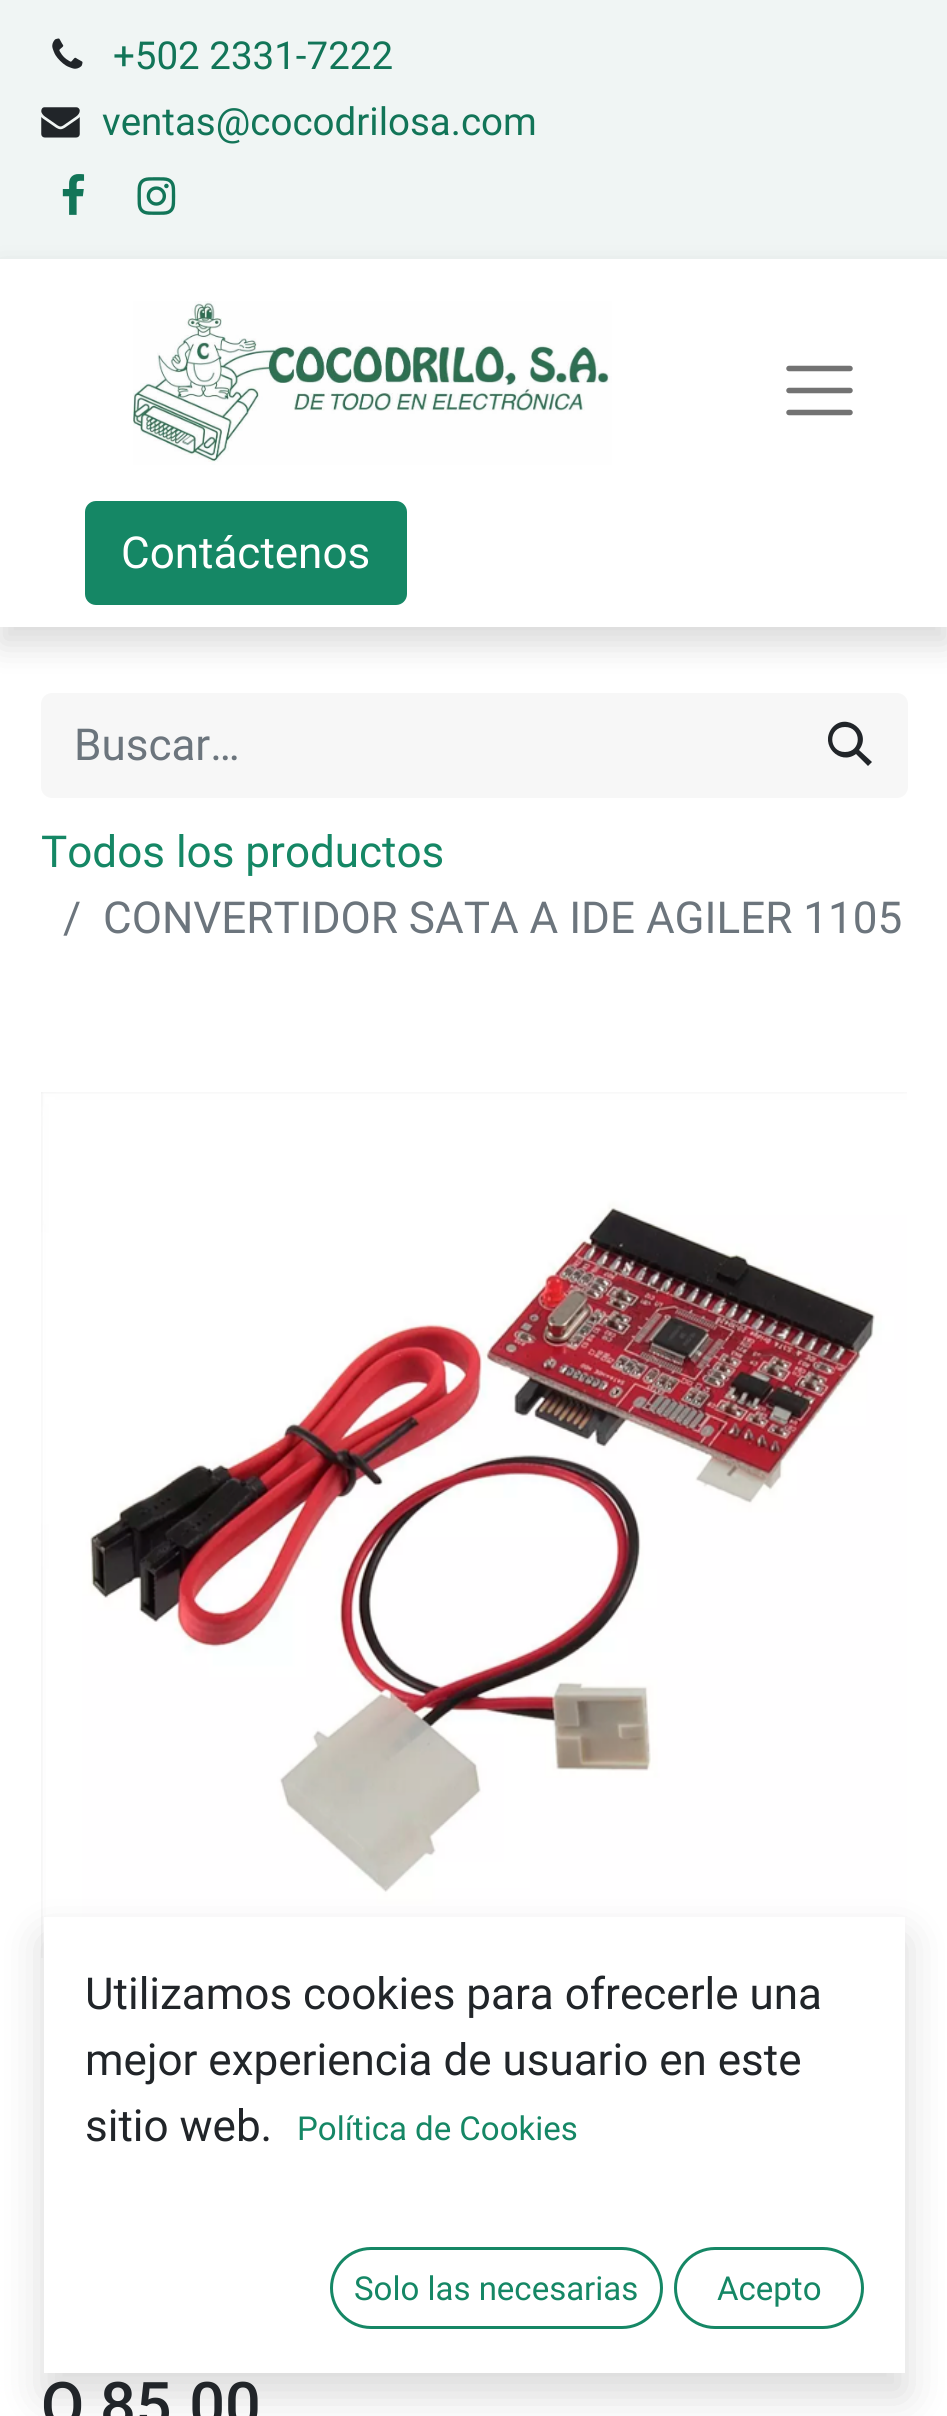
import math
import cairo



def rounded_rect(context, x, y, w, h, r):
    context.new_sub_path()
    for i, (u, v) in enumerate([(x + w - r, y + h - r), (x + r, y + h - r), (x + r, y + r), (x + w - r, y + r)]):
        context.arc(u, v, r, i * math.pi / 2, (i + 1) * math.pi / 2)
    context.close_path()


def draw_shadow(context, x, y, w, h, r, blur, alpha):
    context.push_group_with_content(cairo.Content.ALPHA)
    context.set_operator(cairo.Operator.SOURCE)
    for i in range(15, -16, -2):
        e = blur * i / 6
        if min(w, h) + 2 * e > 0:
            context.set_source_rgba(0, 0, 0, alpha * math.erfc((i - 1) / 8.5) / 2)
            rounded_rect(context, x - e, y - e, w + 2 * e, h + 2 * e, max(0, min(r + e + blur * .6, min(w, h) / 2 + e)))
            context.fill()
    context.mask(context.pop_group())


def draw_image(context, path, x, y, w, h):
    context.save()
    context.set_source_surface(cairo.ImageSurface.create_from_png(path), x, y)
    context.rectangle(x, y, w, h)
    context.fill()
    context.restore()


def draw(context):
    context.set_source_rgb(1, 1, 1)
    context.paint()
    context.set_source_rgb(240 / 255, 245 / 255, 244 / 255)
    context.rectangle(0, 0, 947, 259)
    context.fill()
    draw_image(context, "images/1.png", 52, 38, 31, 31)
    draw_image(context, "images/2.png", 41, 107, 39, 31)
    draw_image(context, "images/3.png", 62, 174, 23, 41)
    draw_image(context, "images/4.png", 137, 177, 39, 38)
    context.set_source_rgb(247 / 255, 247 / 255, 247 / 255)
    context.new_path()
    context.move_to(52, 693)
    context.line_to(795, 693)
    context.line_to(795, 798)
    context.line_to(52, 798)
    context.curve_to(46, 798, 41, 793, 41, 787)
    context.line_to(41, 704)
    context.curve_to(41, 698, 46, 693, 52, 693)
    context.close_path()
    context.fill()
    context.new_path()
    context.move_to(792, 693)
    context.line_to(897, 693)
    context.curve_to(903, 693, 908, 698, 908, 704)
    context.line_to(908, 787)
    context.curve_to(908, 793, 903, 798, 897, 798)
    context.line_to(792, 798)
    context.close_path()
    context.fill()
    context.save()
    context.set_fill_rule(cairo.FillRule.EVEN_ODD)
    context.new_path()
    context.move_to(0, 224)
    context.line_to(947, 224)
    context.line_to(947, 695)
    context.line_to(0, 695)
    context.close_path()
    context.move_to(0, 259)
    context.line_to(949, 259)
    context.line_to(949, 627)
    context.line_to(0, 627)
    context.close_path()
    context.clip()
    context.set_source_rgb(0, 0, 0)
    draw_shadow(context, 0, 275, 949, 369, 0, 16.5, 0.15)
    context.restore()
    draw_image(context, "images/5.png", 133, 301, 479, 164)
    context.new_path()
    context.move_to(789, 368.5)
    context.line_to(850, 368.5)
    context.move_to(789, 390.5)
    context.line_to(850, 390.5)
    context.move_to(789, 412.5)
    context.line_to(850, 412.5)
    context.set_source_rgb(115 / 255, 115 / 255, 115 / 255)
    context.set_line_width(5.5)
    context.set_line_cap(cairo.LineCap.ROUND)
    context.stroke()
    context.set_source_rgb(21 / 255, 135 / 255, 101 / 255)
    rounded_rect(context, 86.5, 502.5, 319, 101, 9.5)
    context.fill_preserve()
    context.set_line_width(3)
    context.set_line_cap(cairo.LineCap.BUTT)
    context.stroke()
    context.set_source_rgb(33 / 255, 37 / 255, 41 / 255)
    context.new_path()
    context.move_to(832, 728)
    context.curve_to(846, 711, 873, 732, 859, 750)
    context.line_to(872, 762)
    context.line_to(868, 766)
    context.line_to(856, 754)
    context.curve_to(840, 766, 819, 745, 832, 728)
    context.close_path()
    context.move_to(845, 727)
    context.curve_to(828, 727, 828, 752, 845, 752)
    context.curve_to(862, 752, 862, 727, 845, 727)
    context.close_path()
    context.fill()
    draw_image(context, "images/6.png", 41, 1092, 866, 866)
    context.set_source_rgb(0, 0, 0)
    draw_shadow(context, 44, 1939, 861, 456, 0, 22, 0.15)
    context.set_source_rgb(1, 1, 1)
    context.rectangle(44, 1917, 861, 456)
    context.fill()
    rounded_rect(context, 331.5, 2248.5, 330, 79, 39.5)
    context.set_source_rgb(21 / 255, 135 / 255, 101 / 255)
    context.stroke()
    rounded_rect(context, 675.5, 2248.5, 187, 79, 39.5)
    context.stroke()
    context.select_font_face("Roboto")
    context.set_font_size(38.5)
    context.set_source_rgb(18 / 255, 117 / 255, 88 / 255)
    context.move_to(113, 69)
    context.show_text("+502 2331-7222")
    context.move_to(102, 135)
    context.show_text("ventas@cocodrilosa.com")
    context.set_font_size(44)
    context.set_source_rgb(1, 1, 1)
    context.move_to(121, 568)
    context.show_text("Contáctenos")
    context.set_source_rgb(108 / 255, 117 / 255, 125 / 255)
    context.move_to(74, 760)
    context.show_text("Buscar…")
    context.set_source_rgb(21 / 255, 135 / 255, 101 / 255)
    context.move_to(41, 867)
    context.show_text("Todos los productos")
    context.set_source_rgb(108 / 255, 117 / 255, 125 / 255)
    context.move_to(63, 933)
    context.show_text("/")
    context.move_to(103, 933)
    context.show_text("CONVERTIDOR SATA A IDE AGILER 1105")
    context.select_font_face("Roboto Medium")
    context.set_font_size(63)
    context.set_source_rgb(33 / 255, 37 / 255, 41 / 255)
    context.move_to(41, 2427)
    context.show_text("Q 85.00")
    context.select_font_face("Roboto")
    context.set_font_size(44)
    context.move_to(85, 2009)
    context.show_text("Utilizamos cookies para ofrecerle una")
    context.move_to(85, 2075)
    context.show_text("mejor experiencia de usuario en este")
    context.move_to(85, 2141)
    context.show_text("sitio web.")
    context.set_font_size(33)
    context.set_source_rgb(21 / 255, 135 / 255, 101 / 255)
    context.move_to(297, 2140)
    context.show_text("Política de Cookies")
    context.move_to(354, 2300)
    context.show_text("Solo las necesarias")
    context.move_to(717, 2300)
    context.show_text("Acepto")


surface = cairo.ImageSurface(cairo.Format.RGB24, 947, 2416)
context = cairo.Context(surface)
options = cairo.FontOptions()
options.set_hint_metrics(cairo.HintMetrics.OFF)
options.set_hint_style(cairo.HintStyle.NONE)
context.set_font_options(options)
context.set_miter_limit(4)
draw(context)
surface.write_to_png("out.png")
